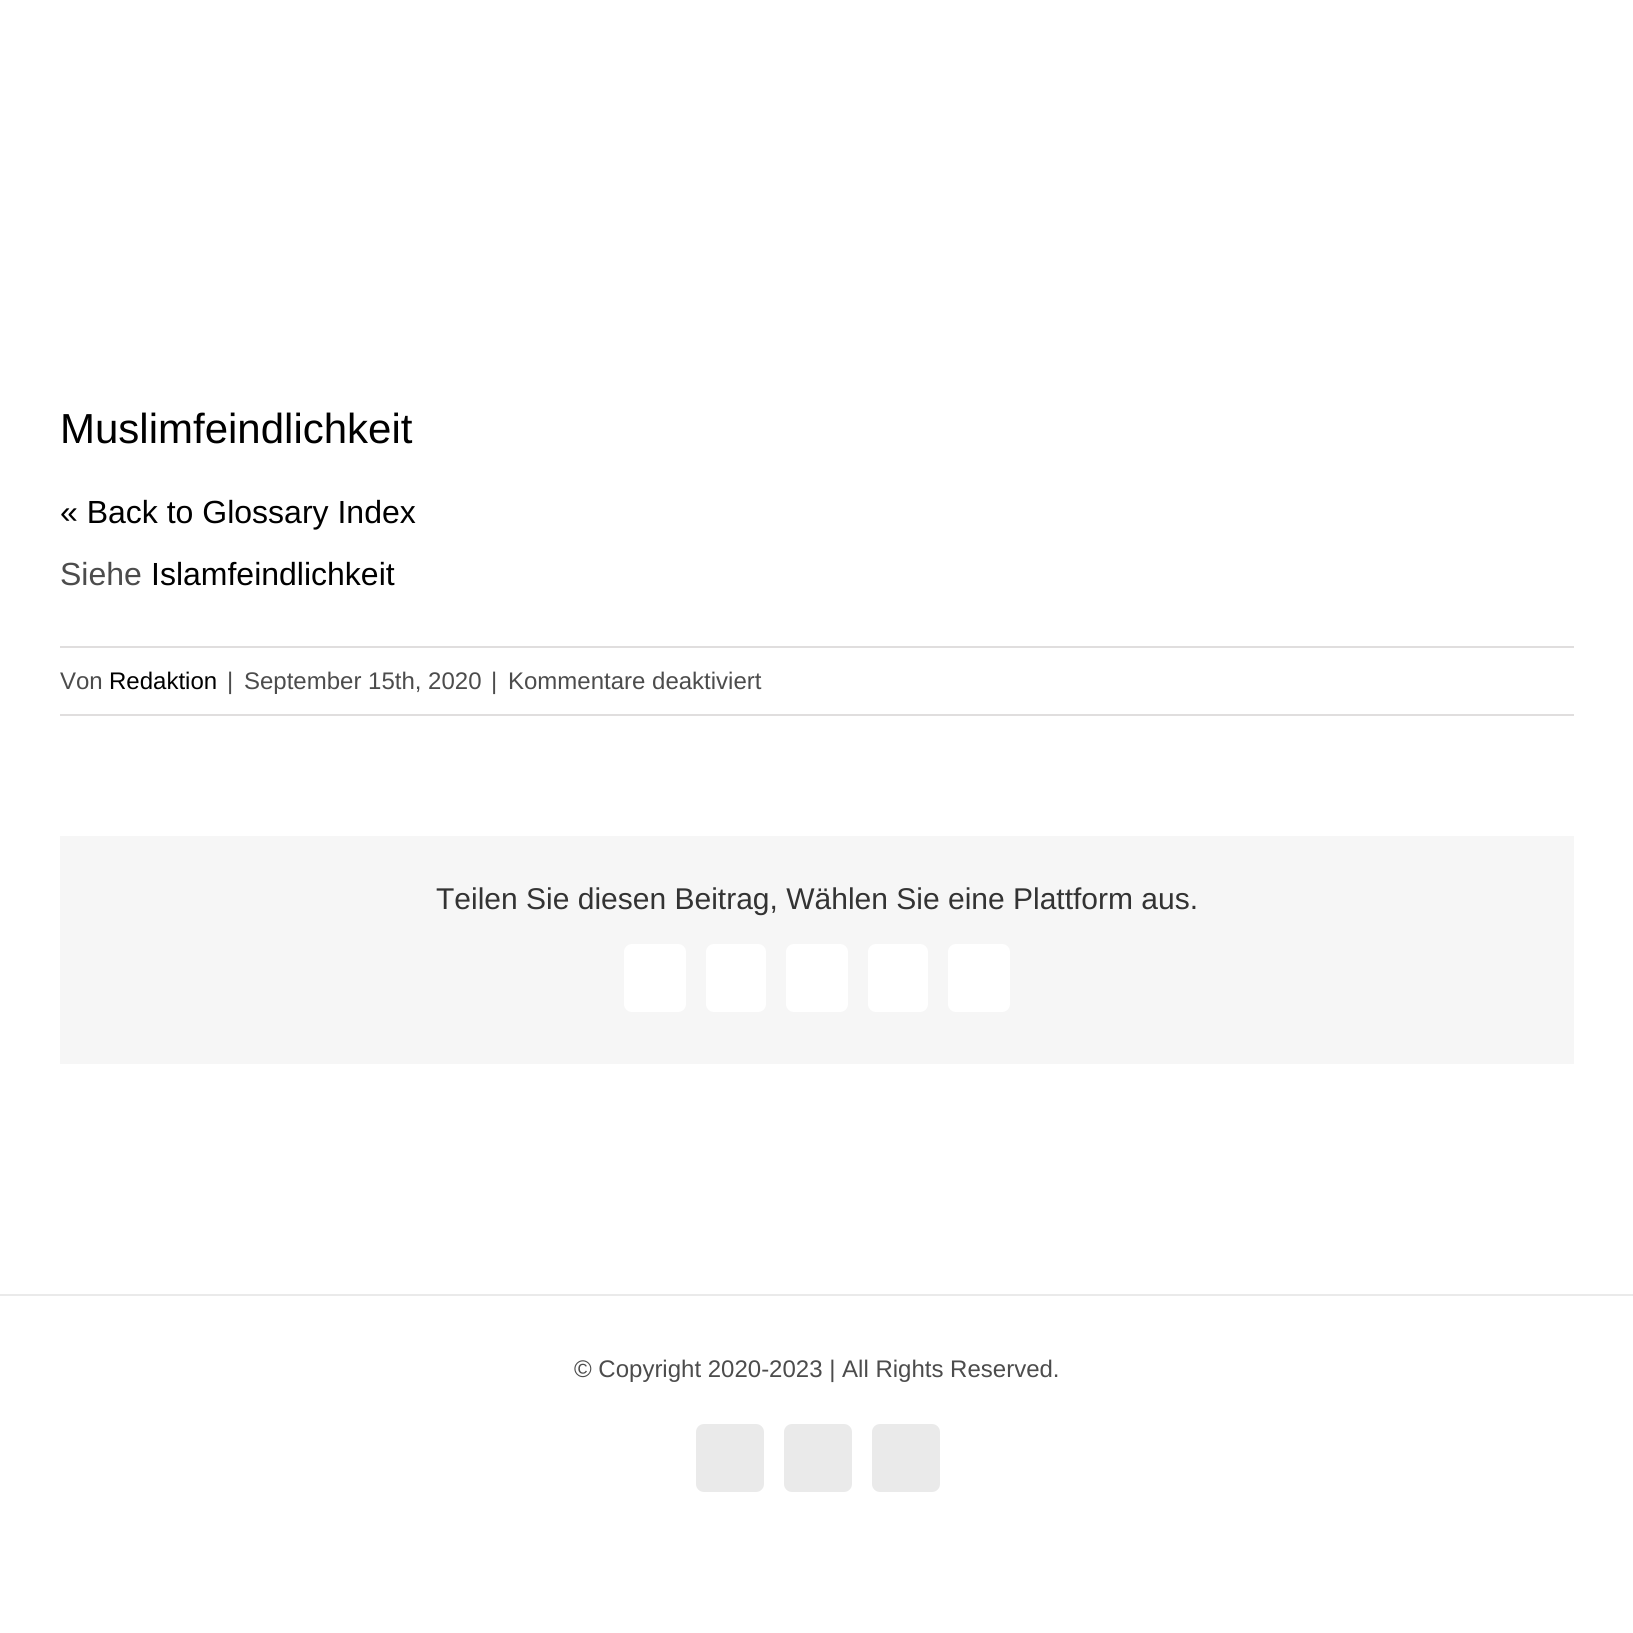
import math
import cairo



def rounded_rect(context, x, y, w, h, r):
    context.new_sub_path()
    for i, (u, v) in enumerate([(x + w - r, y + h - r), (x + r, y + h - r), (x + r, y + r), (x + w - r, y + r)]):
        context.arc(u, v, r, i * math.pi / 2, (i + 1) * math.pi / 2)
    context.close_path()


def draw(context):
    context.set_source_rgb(1, 1, 1)
    context.paint()
    context.set_source_rgb(224 / 255, 222 / 255, 222 / 255)
    context.rectangle(60, 646, 1514, 2)
    context.fill()
    context.rectangle(60, 714, 1514, 2)
    context.fill()
    context.set_source_rgb(246 / 255, 246 / 255, 246 / 255)
    context.rectangle(60, 836, 1514, 228)
    context.fill()
    context.set_source_rgb(1, 1, 1)
    rounded_rect(context, 624, 944, 62, 68, 8)
    context.fill()
    rounded_rect(context, 706, 944, 60, 68, 8)
    context.fill()
    rounded_rect(context, 786, 944, 62, 68, 8)
    context.fill()
    rounded_rect(context, 868, 944, 60, 68, 8)
    context.fill()
    rounded_rect(context, 948, 944, 62, 68, 8)
    context.fill()
    context.set_source_rgb(234 / 255, 234 / 255, 234 / 255)
    context.rectangle(0, 1294, 1633, 2)
    context.fill()
    rounded_rect(context, 697, 1425, 66, 66, 7)
    context.fill_preserve()
    context.stroke()
    rounded_rect(context, 785, 1425, 66, 66, 7)
    context.fill_preserve()
    context.stroke()
    rounded_rect(context, 873, 1425, 66, 66, 7)
    context.fill_preserve()
    context.stroke()
    context.select_font_face("Liberation Sans")
    context.set_font_size(42)
    context.set_source_rgb(0, 0, 0)
    context.move_to(60, 443)
    context.show_text("Muslimfeindlichkeit")
    context.set_font_size(32)
    context.move_to(60, 523)
    context.show_text("« Back to Glossary Index")
    context.set_source_rgb(76 / 255, 76 / 255, 76 / 255)
    context.move_to(60, 585)
    context.show_text("Siehe")
    context.set_source_rgb(0, 0, 0)
    context.move_to(151, 585)
    context.show_text("Islamfeindlichkeit")
    context.set_font_size(24)
    context.set_source_rgb(76 / 255, 76 / 255, 76 / 255)
    context.move_to(60, 689)
    context.show_text("Von")
    context.set_source_rgb(0, 0, 0)
    context.move_to(109, 689)
    context.show_text("Redaktion")
    context.set_source_rgb(76 / 255, 76 / 255, 76 / 255)
    context.move_to(227, 689)
    context.show_text("|")
    context.move_to(244, 689)
    context.show_text("September 15th, 2020")
    context.move_to(491, 689)
    context.show_text("|")
    context.move_to(508, 689)
    context.show_text("Kommentare deaktiviert")
    context.set_font_size(30)
    context.set_source_rgb(51 / 255, 51 / 255, 51 / 255)
    context.move_to(436, 909)
    context.show_text("Teilen Sie diesen Beitrag, Wählen Sie eine Plattform aus.")
    context.set_font_size(24)
    context.set_source_rgb(76 / 255, 76 / 255, 76 / 255)
    context.move_to(574, 1377)
    context.show_text("© Copyright 2020-2023 | All Rights Reserved.")


surface = cairo.ImageSurface(cairo.Format.RGB24, 1633, 1633)
context = cairo.Context(surface)
options = cairo.FontOptions()
options.set_hint_metrics(cairo.HintMetrics.OFF)
options.set_hint_style(cairo.HintStyle.NONE)
context.set_font_options(options)
context.set_miter_limit(4)
draw(context)
surface.write_to_png("out.png")
